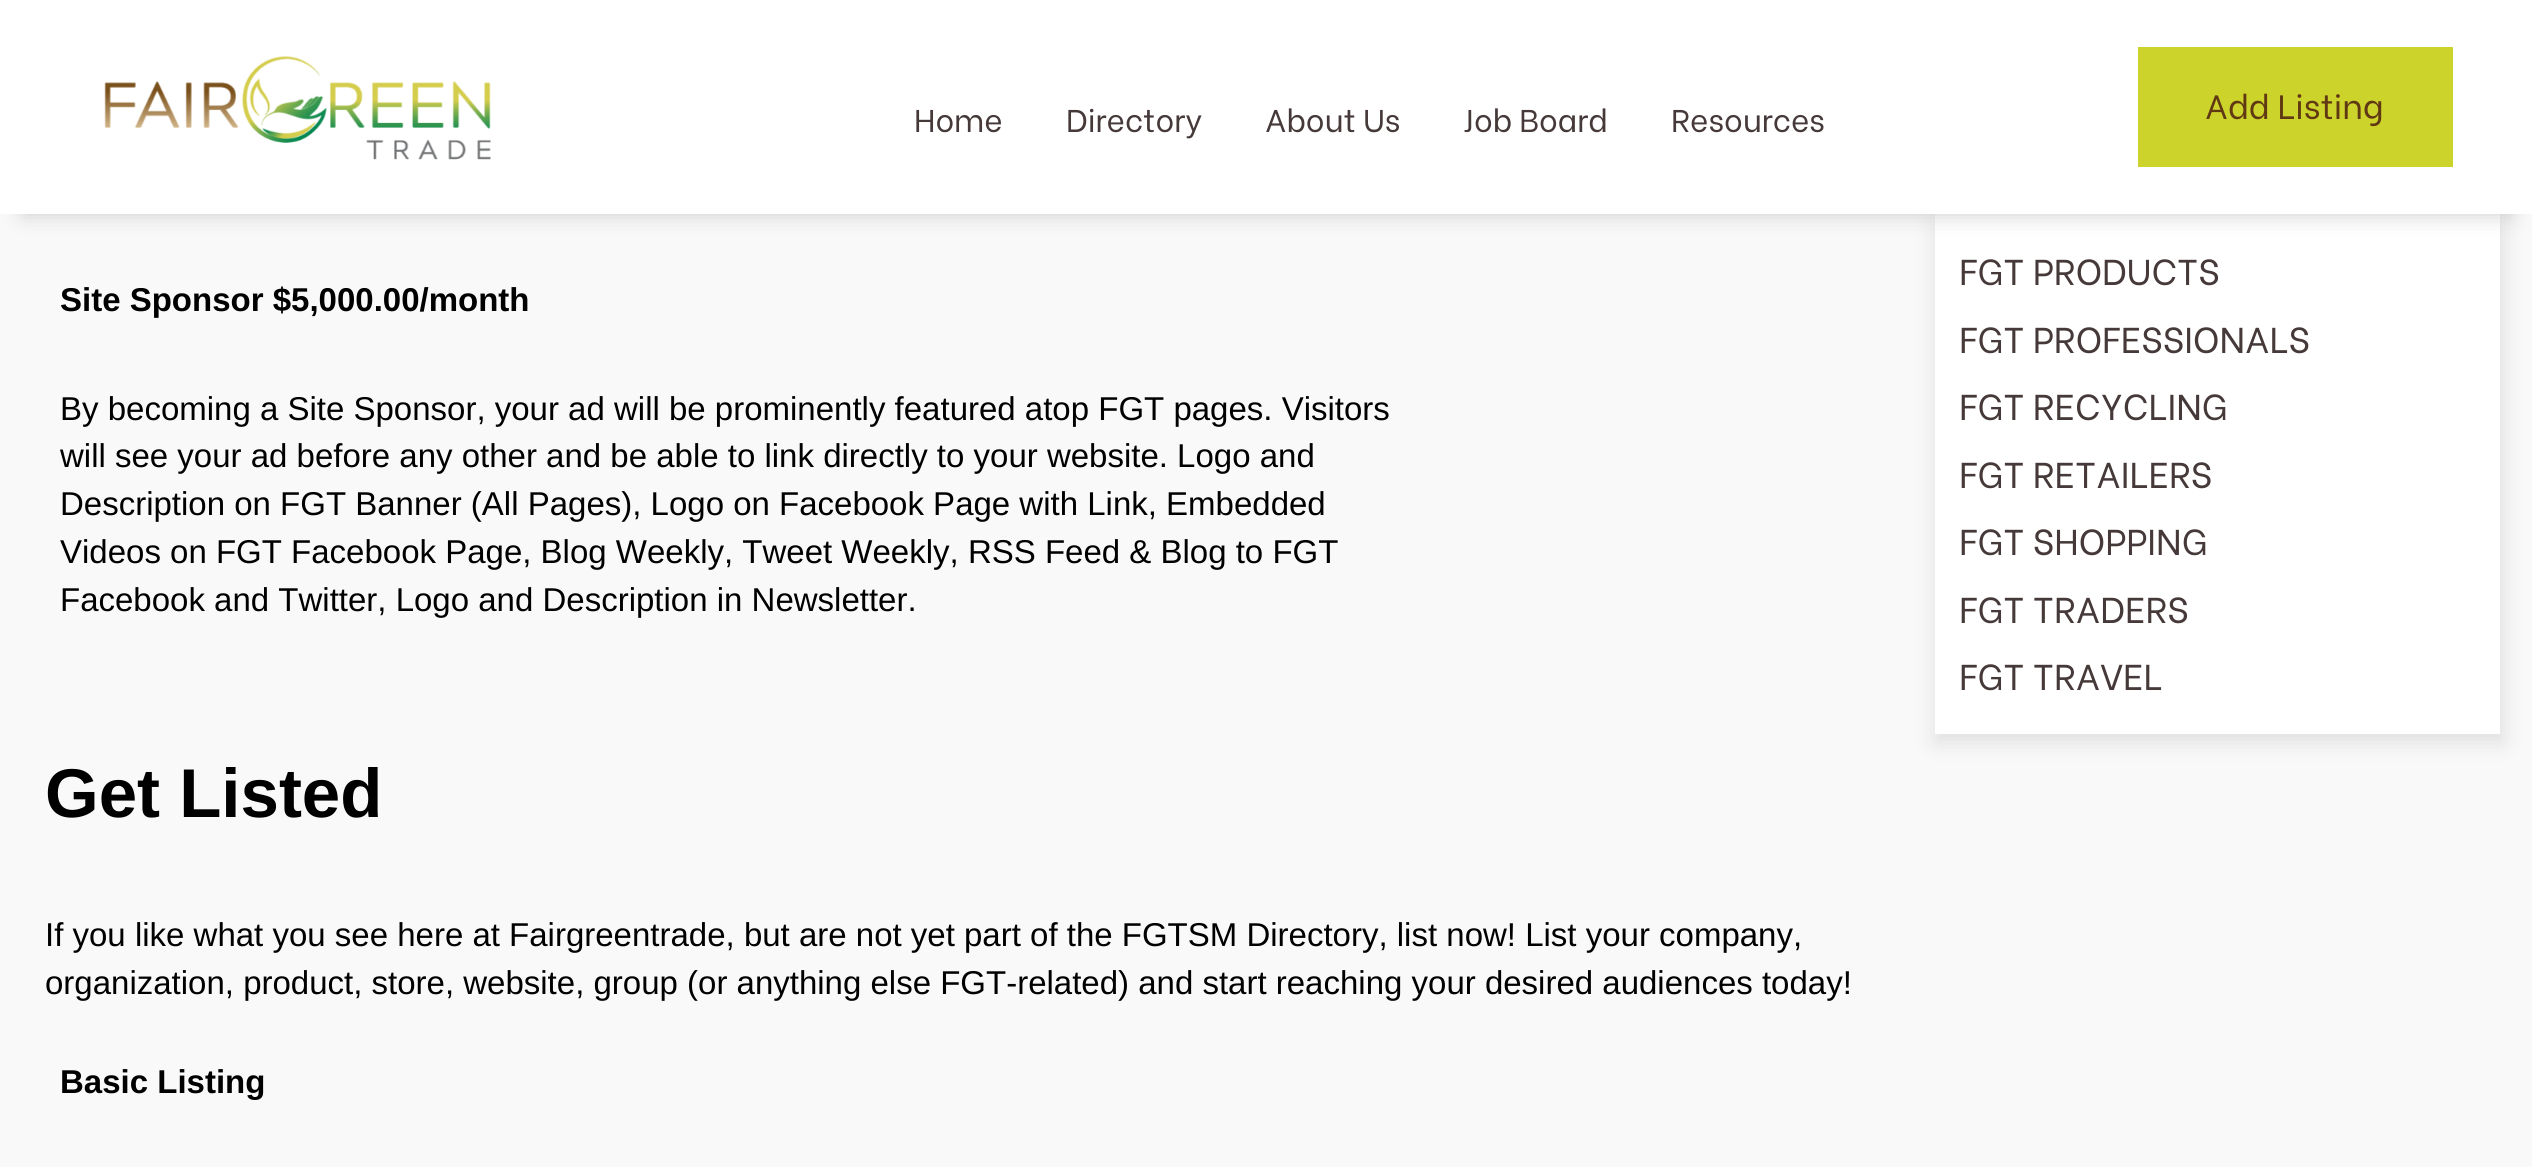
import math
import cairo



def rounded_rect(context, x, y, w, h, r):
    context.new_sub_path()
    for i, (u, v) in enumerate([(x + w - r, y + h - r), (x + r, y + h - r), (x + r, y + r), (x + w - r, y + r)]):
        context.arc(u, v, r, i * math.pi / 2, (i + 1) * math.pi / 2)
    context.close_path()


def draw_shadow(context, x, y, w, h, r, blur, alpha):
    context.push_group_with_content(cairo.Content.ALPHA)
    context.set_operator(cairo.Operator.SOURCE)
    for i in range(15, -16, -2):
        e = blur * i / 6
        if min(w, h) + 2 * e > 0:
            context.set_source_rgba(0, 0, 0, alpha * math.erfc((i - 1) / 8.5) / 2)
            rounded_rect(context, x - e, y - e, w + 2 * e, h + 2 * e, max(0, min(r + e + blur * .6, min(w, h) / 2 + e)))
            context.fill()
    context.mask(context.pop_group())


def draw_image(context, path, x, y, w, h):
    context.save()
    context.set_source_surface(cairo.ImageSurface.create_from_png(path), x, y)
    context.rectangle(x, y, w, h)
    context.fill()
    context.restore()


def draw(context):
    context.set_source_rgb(249 / 255, 249 / 255, 249 / 255)
    context.paint()
    context.set_source_rgb(0, 0, 0)
    draw_shadow(context, 1935, -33, 569, 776, 0, 11, 0.1)
    context.set_source_rgb(1, 1, 1)
    context.rectangle(1935, 214, 565, 520)
    context.fill()
    context.set_source_rgb(204 / 255, 204 / 255, 204 / 255)
    draw_shadow(context, 23, 45, 2488, 169, 0, 11, 1)
    context.set_source_rgb(1, 1, 1)
    context.rectangle(0, 0, 2532, 214)
    context.fill()
    draw_image(context, "images/1.png", 104, 56, 387, 104)
    context.set_source_rgb(204 / 255, 212 / 255, 44 / 255)
    context.rectangle(2138, 47, 315, 120)
    context.fill()
    context.select_font_face("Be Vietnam")
    context.set_font_size(31.5)
    context.set_source_rgb(70 / 255, 57 / 255, 57 / 255)
    context.move_to(914, 132)
    context.show_text("Home")
    context.move_to(1066, 132)
    context.show_text("Directory")
    context.move_to(1265, 132)
    context.show_text("About Us")
    context.move_to(1463, 132)
    context.show_text("Job Board")
    context.move_to(1671, 132)
    context.show_text("Resources")
    context.set_font_size(33.75)
    context.set_source_rgb(96 / 255, 57 / 255, 19 / 255)
    context.move_to(2205, 119)
    context.show_text("Add Listing")
    context.select_font_face("Liberation Sans", cairo.FontSlant.NORMAL, cairo.FontWeight.BOLD)
    context.set_font_size(33)
    context.set_source_rgb(0, 0, 0)
    context.move_to(60, 311)
    context.show_text("Site Sponsor $5,000.00/month")
    context.select_font_face("Liberation Sans")
    context.move_to(60, 420)
    context.show_text("By becoming a Site Sponsor, your ad will be prominently featured atop FGT pages. Visitors")
    context.move_to(60, 467)
    context.show_text("will see your ad before any other and be able to link directly to your website. Logo and")
    context.move_to(60, 515)
    context.show_text("Description on FGT Banner (All Pages), Logo on Facebook Page with Link, Embedded")
    context.move_to(60, 563)
    context.show_text("Videos on FGT Facebook Page, Blog Weekly, Tweet Weekly, RSS Feed & Blog to FGT")
    context.move_to(60, 611)
    context.show_text("Facebook and Twitter, Logo and Description in Newsletter.")
    context.select_font_face("Liberation Sans", cairo.FontSlant.NORMAL, cairo.FontWeight.BOLD)
    context.set_font_size(69)
    context.move_to(45, 817)
    context.show_text("Get Listed")
    context.select_font_face("Liberation Sans")
    context.set_font_size(33)
    context.move_to(45, 946)
    context.show_text("If you like what you see here at Fairgreentrade, but are not yet part of the FGTSM Directory, list now! List your company,")
    context.move_to(45, 994)
    context.show_text("organization, product, store, website, group (or anything else FGT-related) and start reaching your desired audiences today!")
    context.select_font_face("Liberation Sans", cairo.FontSlant.NORMAL, cairo.FontWeight.BOLD)
    context.move_to(60, 1093)
    context.show_text("Basic Listing")
    context.select_font_face("Be Vietnam")
    context.set_font_size(36)
    context.set_source_rgb(70 / 255, 57 / 255, 57 / 255)
    context.move_to(1959, 285)
    context.show_text("FGT PRODUCTS")
    context.move_to(1959, 353)
    context.show_text("FGT PROFESSIONALS")
    context.move_to(1959, 420)
    context.show_text("FGT RECYCLING")
    context.move_to(1959, 488)
    context.show_text("FGT RETAILERS")
    context.move_to(1959, 555)
    context.show_text("FGT SHOPPING")
    context.move_to(1959, 623)
    context.show_text("FGT TRADERS")
    context.move_to(1959, 690)
    context.show_text("FGT TRAVEL")


surface = cairo.ImageSurface(cairo.Format.RGB24, 2532, 1167)
context = cairo.Context(surface)
options = cairo.FontOptions()
options.set_hint_metrics(cairo.HintMetrics.OFF)
options.set_hint_style(cairo.HintStyle.NONE)
context.set_font_options(options)
context.set_miter_limit(4)
draw(context)
surface.write_to_png("out.png")
